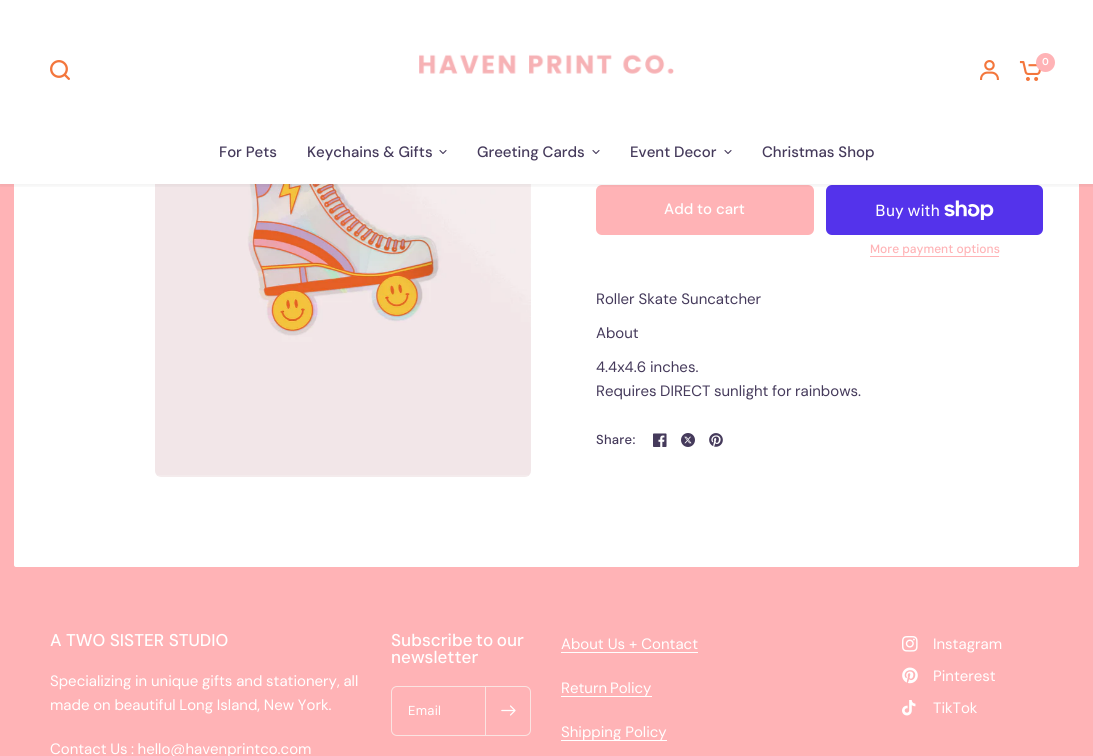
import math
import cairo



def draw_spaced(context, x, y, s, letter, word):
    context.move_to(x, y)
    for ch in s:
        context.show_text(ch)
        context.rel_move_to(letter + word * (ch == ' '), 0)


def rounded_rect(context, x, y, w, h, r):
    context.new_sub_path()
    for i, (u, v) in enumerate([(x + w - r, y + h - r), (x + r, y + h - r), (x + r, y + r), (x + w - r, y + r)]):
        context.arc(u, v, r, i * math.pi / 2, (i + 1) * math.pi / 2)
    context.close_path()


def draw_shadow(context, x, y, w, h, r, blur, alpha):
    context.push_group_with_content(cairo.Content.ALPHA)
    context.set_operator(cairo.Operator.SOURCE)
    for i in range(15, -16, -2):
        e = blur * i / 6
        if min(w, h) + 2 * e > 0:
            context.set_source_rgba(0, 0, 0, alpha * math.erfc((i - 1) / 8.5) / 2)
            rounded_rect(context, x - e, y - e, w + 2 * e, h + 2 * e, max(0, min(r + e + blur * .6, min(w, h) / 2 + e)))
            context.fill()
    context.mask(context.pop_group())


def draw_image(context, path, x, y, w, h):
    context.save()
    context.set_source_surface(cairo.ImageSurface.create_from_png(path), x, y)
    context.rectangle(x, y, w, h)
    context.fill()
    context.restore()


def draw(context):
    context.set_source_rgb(1, 179 / 255, 182 / 255)
    context.paint()
    context.set_source_rgb(1, 1, 1)
    rounded_rect(context, 14, -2, 1065, 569, 2)
    context.fill()
    context.rectangle(0, 0, 1093, 184)
    context.fill()
    draw_image(context, "images/5.png", 155, 184, 376, 293)
    context.set_source_rgb(1, 179 / 255, 182 / 255)
    rounded_rect(context, 596, 185, 218, 50, 6)
    context.fill()
    context.set_source_rgb(84 / 255, 51 / 255, 235 / 255)
    rounded_rect(context, 826, 185, 217, 50, 6)
    context.fill()
    context.save()
    context.rectangle(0, 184, 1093, 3)
    context.clip()
    context.set_source_rgb(0, 0, 0)
    draw_shadow(context, 0, 2, 1093, 184, 0, 2.5, 0.06)
    context.restore()
    draw_image(context, "images/1.png", 50, 60, 20, 20)
    draw_image(context, "images/2.png", 419, 54, 255, 20)
    draw_image(context, "images/3.png", 980, 60, 19, 20)
    draw_image(context, "images/4.png", 1019, 61, 22, 20)
    context.set_source_rgb(1, 179 / 255, 182 / 255)
    context.arc(1045.5, 62.5, 9.5, 0, 2 * math.pi)
    context.fill()
    context.new_path()
    context.move_to(446, 150.5)
    context.line_to(443, 153.5)
    context.line_to(440, 150.5)
    context.set_source_rgb(69 / 255, 58 / 255, 91 / 255)
    context.set_line_width(1.1)
    context.set_line_cap(cairo.LineCap.ROUND)
    context.set_line_join(cairo.LineJoin.ROUND)
    context.stroke()
    context.new_path()
    context.move_to(599, 150.5)
    context.line_to(596, 153.5)
    context.line_to(593, 150.5)
    context.stroke()
    context.new_path()
    context.move_to(731, 150.5)
    context.line_to(728, 153.5)
    context.line_to(725, 150.5)
    context.stroke()
    draw_image(context, "images/6.png", 944, 200, 50, 20)
    context.set_source_rgb(1, 179 / 255, 182 / 255)
    context.rectangle(870, 256, 129, 1)
    context.fill()
    draw_image(context, "images/7.png", 653, 433, 14, 14)
    draw_image(context, "images/8.png", 681, 433, 14, 14)
    draw_image(context, "images/9.png", 709, 433, 14, 14)
    rounded_rect(context, 391.5, 686.5, 139, 49, 5.5)
    context.set_source_rgb(250 / 255, 228 / 255, 226 / 255)
    context.set_line_width(1)
    context.set_line_cap(cairo.LineCap.BUTT)
    context.set_line_join(cairo.LineJoin.MITER)
    context.stroke()
    context.rectangle(485, 687, 1, 48)
    context.fill()
    draw_image(context, "images/10.png", 501, 705, 15, 11)
    context.set_source_rgb(1, 1, 1)
    context.rectangle(561, 652, 137, 1)
    context.fill()
    context.rectangle(561, 696, 91, 1)
    context.fill()
    context.rectangle(561, 740, 106, 1)
    context.fill()
    draw_image(context, "images/11.png", 902, 636, 16, 16)
    draw_image(context, "images/12.png", 902, 667, 16, 17)
    draw_image(context, "images/13.png", 902, 700, 14, 16)
    context.select_font_face("DM Sans SemiBold")
    context.set_font_size(10)
    context.move_to(1042, 65)
    context.show_text("0")
    context.select_font_face("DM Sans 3 Medium")
    context.set_font_size(15)
    context.set_source_rgb(69 / 255, 58 / 255, 91 / 255)
    context.move_to(219, 157)
    context.show_text("For Pets")
    context.move_to(307, 157)
    context.show_text("Keychains & Gifts")
    context.move_to(477, 157)
    context.show_text("Greeting Cards")
    context.move_to(630, 157)
    context.show_text("Event Decor")
    context.move_to(762, 157)
    context.show_text("Christmas Shop")
    context.set_source_rgb(1, 1, 1)
    context.move_to(664, 214)
    context.show_text("Add to cart")
    context.select_font_face("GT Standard")
    context.set_font_size(16)
    context.move_to(875, 216)
    context.show_text("Buy with")
    context.select_font_face("DM Sans Medium")
    context.set_font_size(12)
    context.set_source_rgb(1, 179 / 255, 182 / 255)
    context.move_to(870, 253)
    context.show_text("More payment options")
    context.select_font_face("DM Sans")
    context.set_font_size(15)
    context.set_source_rgb(69 / 255, 58 / 255, 91 / 255)
    context.move_to(596, 304)
    context.show_text("Roller Skate Suncatcher")
    context.move_to(596, 338)
    context.show_text("About")
    context.move_to(596, 372)
    context.show_text("4.4x4.6")
    context.move_to(650, 372)
    context.show_text("inches.")
    draw_spaced(context, 596, 396, "Requires DIRECT sunlight for rainbows.", 0, -0.5)
    context.select_font_face("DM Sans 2 Medium")
    context.set_font_size(13)
    draw_spaced(context, 596, 444, "Share:", 0.25, 0)
    context.select_font_face("DM Sans Medium")
    context.set_font_size(17)
    context.set_source_rgb(1, 1, 1)
    context.move_to(50, 646)
    context.show_text("A TWO SISTER STUDIO")
    context.select_font_face("DM Sans")
    context.set_font_size(15)
    draw_spaced(context, 50, 686, "Specializing in unique gifts and stationery, all", 0, -0.25)
    draw_spaced(context, 50, 710, "made on beautiful Long Island, New York.", 0, -0.25)
    draw_spaced(context, 50, 754, "Contact Us : hello@havenprintco.com", 0, -0.5)
    context.select_font_face("DM Sans Medium")
    context.set_font_size(17)
    draw_spaced(context, 391, 646, "Subscribe to our", 0, -1)
    context.move_to(391, 663)
    context.show_text("newsletter")
    context.select_font_face("DM Sans 2")
    context.set_font_size(13)
    draw_spaced(context, 408, 715, "Email", 0.25, 0)
    context.select_font_face("DM Sans")
    context.set_font_size(15)
    context.move_to(561, 649)
    context.show_text("About Us + Contact")
    draw_spaced(context, 561, 693, "Return Policy", 0, -1)
    context.move_to(561, 737)
    context.show_text("Shipping Policy")
    context.move_to(933, 649)
    context.show_text("Instagram")
    context.move_to(933, 681)
    context.show_text("Pinterest")
    context.move_to(933, 713)
    context.show_text("TikTok")


surface = cairo.ImageSurface(cairo.Format.RGB24, 1093, 756)
context = cairo.Context(surface)
options = cairo.FontOptions()
options.set_hint_metrics(cairo.HintMetrics.OFF)
options.set_hint_style(cairo.HintStyle.NONE)
context.set_font_options(options)
context.set_miter_limit(4)
draw(context)
surface.write_to_png("out.png")
